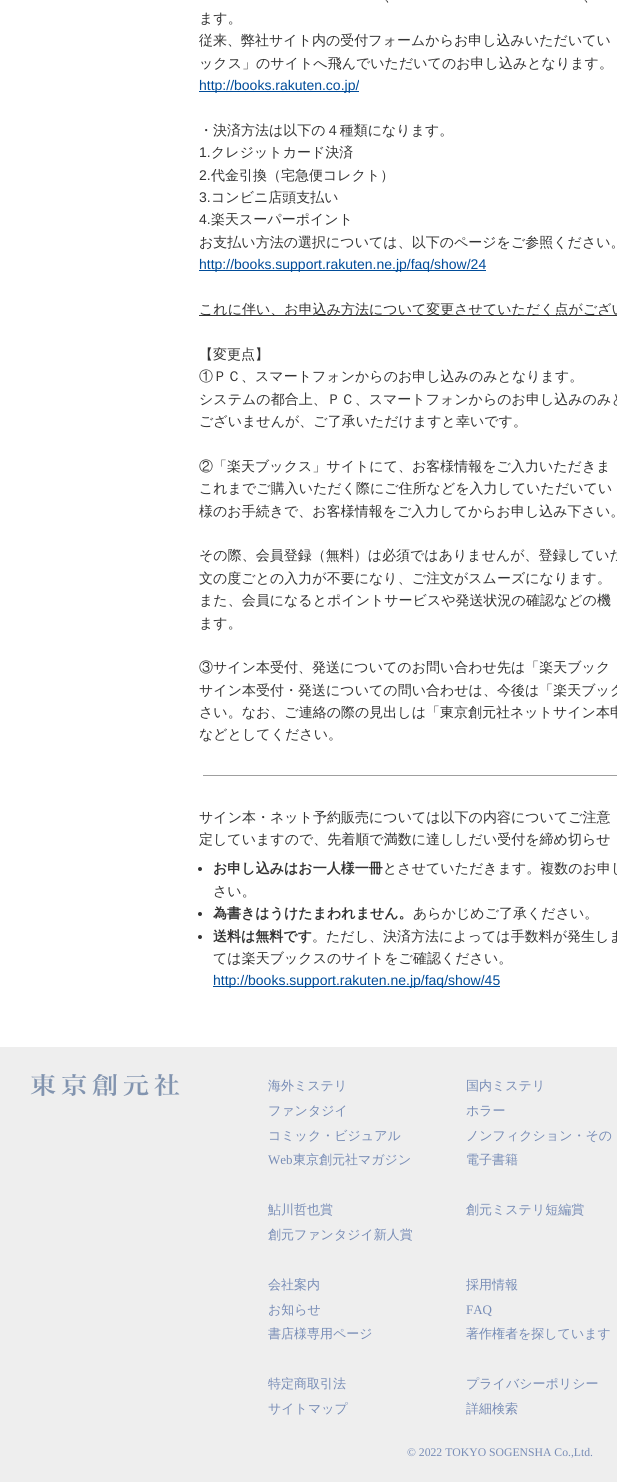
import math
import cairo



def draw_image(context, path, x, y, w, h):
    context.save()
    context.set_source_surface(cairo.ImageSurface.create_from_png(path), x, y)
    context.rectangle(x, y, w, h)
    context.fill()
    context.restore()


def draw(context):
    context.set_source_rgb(1, 1, 1)
    context.paint()
    context.set_source_rgb(238 / 255, 238 / 255, 238 / 255)
    context.rectangle(0, 1047, 617, 435)
    context.fill()
    context.set_source_rgb(0, 76 / 255, 153 / 255)
    context.rectangle(199, 91, 160, 1)
    context.fill()
    context.rectangle(199, 270, 287, 1)
    context.fill()
    context.set_source_rgb(51 / 255, 51 / 255, 51 / 255)
    context.rectangle(199, 315, 418, 1)
    context.fill()
    context.set_source_rgb(159 / 255, 159 / 255, 159 / 255)
    context.rectangle(203, 775, 414, 1)
    context.fill()
    context.set_source_rgb(51 / 255, 51 / 255, 51 / 255)
    context.arc(200, 869, 2, 0, 2 * math.pi)
    context.fill()
    context.arc(200, 914, 2, 0, 2 * math.pi)
    context.fill()
    context.arc(200, 937, 2, 0, 2 * math.pi)
    context.fill()
    context.set_source_rgb(0, 76 / 255, 153 / 255)
    context.rectangle(213, 986, 287, 1)
    context.fill()
    draw_image(context, "images/1.png", 30, 1074, 150, 22)
    context.select_font_face("WenQuanYi Zen Hei Medium")
    context.set_font_size(14)
    context.set_source_rgb(51 / 255, 51 / 255, 51 / 255)
    context.move_to(384, 1)
    context.show_text("、")
    context.move_to(583, 1)
    context.show_text("、")
    context.move_to(199, 23)
    context.show_text("ます。")
    context.move_to(199, 45)
    context.show_text("従来、弊社サイト内の受付フォームからお申し込みいただいてい")
    context.move_to(199, 68)
    context.show_text("ックス」のサイトへ飛んでいただいてのお申し込みとなります。")
    context.select_font_face("Liberation Sans")
    context.set_source_rgb(0, 76 / 255, 153 / 255)
    context.move_to(199, 90)
    context.show_text("http://books.rakuten.co.jp/")
    context.select_font_face("WenQuanYi Zen Hei Medium")
    context.set_source_rgb(51 / 255, 51 / 255, 51 / 255)
    context.move_to(199, 135)
    context.show_text("・決済方法は以下の４種類になります。")
    context.select_font_face("Liberation Sans")
    context.move_to(199, 157)
    context.show_text("1.")
    context.select_font_face("WenQuanYi Zen Hei Medium")
    context.move_to(211, 157)
    context.show_text("クレジットカード決済")
    context.select_font_face("Liberation Sans")
    context.move_to(199, 180)
    context.show_text("2.")
    context.select_font_face("WenQuanYi Zen Hei Medium")
    context.move_to(211, 180)
    context.show_text("代金引換（宅急便コレクト）")
    context.select_font_face("Liberation Sans")
    context.move_to(199, 202)
    context.show_text("3.")
    context.select_font_face("WenQuanYi Zen Hei Medium")
    context.move_to(211, 202)
    context.show_text("コンビニ店頭支払い")
    context.select_font_face("Liberation Sans")
    context.move_to(199, 224)
    context.show_text("4.")
    context.select_font_face("WenQuanYi Zen Hei Medium")
    context.move_to(211, 224)
    context.show_text("楽天スーパーポイント")
    context.move_to(199, 247)
    context.show_text("お支払い方法の選択については、以下のページをご参照ください。")
    context.select_font_face("Liberation Sans")
    context.set_source_rgb(0, 76 / 255, 153 / 255)
    context.move_to(199, 269)
    context.show_text("http://books.support.rakuten.ne.jp/faq/show/24")
    context.select_font_face("WenQuanYi Zen Hei Medium")
    context.set_source_rgb(51 / 255, 51 / 255, 51 / 255)
    context.move_to(199, 314)
    context.show_text("これに伴い、お申込み方法について変更させていただく点がござい")
    context.move_to(199, 359)
    context.show_text("【変更点】")
    context.move_to(199, 381)
    context.show_text("①ＰＣ、スマートフォンからのお申し込みのみとなります。")
    context.move_to(199, 404)
    context.show_text("システムの都合上、ＰＣ、スマートフォンからのお申し込みのみと")
    context.move_to(199, 426)
    context.show_text("ございませんが、ご了承いただけますと幸いです。")
    context.move_to(199, 471)
    context.show_text("②「楽天ブックス」サイトにて、お客様情報をご入力いただきま")
    context.move_to(199, 493)
    context.show_text("これまでご購入いただく際にご住所などを入力していただいてい")
    context.move_to(199, 516)
    context.show_text("様のお手続きで、お客様情報をご入力してからお申し込み下さい。")
    context.move_to(199, 560)
    context.show_text("その際、会員登録（無料）は必須ではありませんが、登録していた")
    context.move_to(199, 583)
    context.show_text("文の度ごとの入力が不要になり、ご注文がスムーズになります。")
    context.move_to(199, 605)
    context.show_text("また、会員になるとポイントサービスや発送状況の確認などの機")
    context.move_to(199, 628)
    context.show_text("ます。")
    context.move_to(199, 672)
    context.show_text("③サイン本受付、発送についてのお問い合わせ先は「楽天ブック")
    context.move_to(199, 695)
    context.show_text("サイン本受付・発送についての問い合わせは、今後は「楽天ブック")
    context.move_to(199, 717)
    context.show_text("さい。なお、ご連絡の際の見出しは「東京創元社ネットサイン本申")
    context.move_to(199, 739)
    context.show_text("などとしてください。")
    context.move_to(199, 822)
    context.show_text("サイン本・ネット予約販売については以下の内容についてご注意")
    context.move_to(199, 844)
    context.show_text("定していますので、先着順で満数に達ししだい受付を締め切らせ")
    context.select_font_face("WenQuanYi Zen Hei", cairo.FontSlant.NORMAL, cairo.FontWeight.BOLD)
    context.move_to(213, 873)
    context.show_text("お申し込みはお一人様一冊")
    context.select_font_face("WenQuanYi Zen Hei Medium")
    context.move_to(383, 873)
    context.show_text("とさせていただきます。複数のお申し")
    context.move_to(213, 896)
    context.show_text("さい。")
    context.select_font_face("WenQuanYi Zen Hei", cairo.FontSlant.NORMAL, cairo.FontWeight.BOLD)
    context.move_to(213, 918)
    context.show_text("為書きはうけたまわれません。")
    context.select_font_face("WenQuanYi Zen Hei Medium")
    context.move_to(413, 918)
    context.show_text("あらかじめご了承ください。")
    context.select_font_face("WenQuanYi Zen Hei", cairo.FontSlant.NORMAL, cairo.FontWeight.BOLD)
    context.move_to(213, 941)
    context.show_text("送料は無料です")
    context.select_font_face("WenQuanYi Zen Hei Medium")
    context.move_to(312, 941)
    context.show_text("。ただし、決済方法によっては手数料が発生しま")
    context.move_to(213, 963)
    context.show_text("ては楽天ブックスのサイトをご確認ください。")
    context.select_font_face("Liberation Sans")
    context.set_source_rgb(0, 76 / 255, 153 / 255)
    context.move_to(213, 985)
    context.show_text("http://books.support.rakuten.ne.jp/faq/show/45")
    context.select_font_face("WenQuanYi Zen Hei Medium")
    context.set_font_size(13)
    context.set_source_rgb(119 / 255, 140 / 255, 182 / 255)
    context.move_to(268, 1090)
    context.show_text("海外ミステリ")
    context.move_to(466, 1090)
    context.show_text("国内ミステリ")
    context.move_to(268, 1115)
    context.show_text("ファンタジイ")
    context.move_to(466, 1115)
    context.show_text("ホラー")
    context.move_to(268, 1140)
    context.show_text("コミック・ビジュアル")
    context.move_to(466, 1140)
    context.show_text("ノンフィクション・その")
    context.select_font_face("Liberation Serif")
    context.move_to(268, 1164)
    context.show_text("Web")
    context.select_font_face("WenQuanYi Zen Hei Medium")
    context.move_to(293, 1164)
    context.show_text("東京創元社マガジン")
    context.move_to(466, 1164)
    context.show_text("電子書籍")
    context.move_to(268, 1214)
    context.show_text("鮎川哲也賞")
    context.move_to(466, 1214)
    context.show_text("創元ミステリ短編賞")
    context.move_to(268, 1239)
    context.show_text("創元ファンタジイ新人賞")
    context.move_to(268, 1289)
    context.show_text("会社案内")
    context.move_to(466, 1289)
    context.show_text("採用情報")
    context.move_to(268, 1314)
    context.show_text("お知らせ")
    context.select_font_face("Liberation Serif")
    context.move_to(466, 1314)
    context.show_text("FAQ")
    context.select_font_face("WenQuanYi Zen Hei Medium")
    context.move_to(268, 1338)
    context.show_text("書店様専用ページ")
    context.move_to(466, 1338)
    context.show_text("著作権者を探しています")
    context.move_to(268, 1388)
    context.show_text("特定商取引法")
    context.move_to(466, 1388)
    context.show_text("プライバシーポリシー")
    context.move_to(268, 1413)
    context.show_text("サイトマップ")
    context.move_to(466, 1413)
    context.show_text("詳細検索")
    context.select_font_face("Liberation Serif")
    context.set_font_size(11.7)
    context.move_to(407, 1456)
    context.show_text("© 2022 TOKYO SOGENSHA Co.,Ltd.")


surface = cairo.ImageSurface(cairo.Format.RGB24, 617, 1482)
context = cairo.Context(surface)
options = cairo.FontOptions()
options.set_hint_metrics(cairo.HintMetrics.OFF)
options.set_hint_style(cairo.HintStyle.NONE)
context.set_font_options(options)
context.set_miter_limit(4)
draw(context)
surface.write_to_png("out.png")
